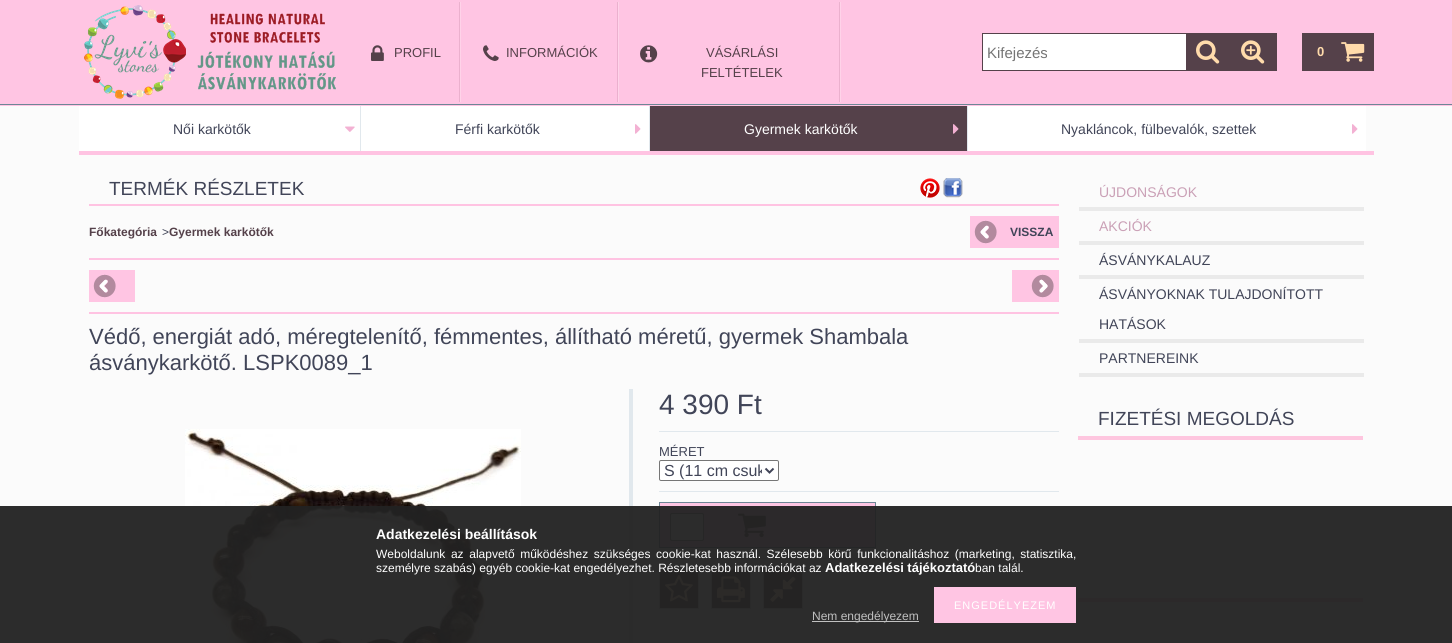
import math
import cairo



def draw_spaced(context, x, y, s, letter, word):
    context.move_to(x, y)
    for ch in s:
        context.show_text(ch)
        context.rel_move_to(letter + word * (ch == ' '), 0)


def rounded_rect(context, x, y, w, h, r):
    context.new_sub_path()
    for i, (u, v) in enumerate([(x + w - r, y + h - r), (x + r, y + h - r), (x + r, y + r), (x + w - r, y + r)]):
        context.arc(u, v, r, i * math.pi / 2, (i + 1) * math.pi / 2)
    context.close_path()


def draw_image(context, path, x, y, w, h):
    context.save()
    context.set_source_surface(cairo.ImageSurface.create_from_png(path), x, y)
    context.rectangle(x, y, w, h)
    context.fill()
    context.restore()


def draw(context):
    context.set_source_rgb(251 / 255, 251 / 255, 251 / 255)
    context.paint()
    context.set_source_rgb(1, 197 / 255, 227 / 255)
    context.rectangle(0, 0, 1452, 106)
    context.fill()
    context.set_source_rgb(109 / 255, 134 / 255, 150 / 255)
    context.rectangle(0, 104, 1452, 1)
    context.fill()
    draw_image(context, "images/1.png", 84, 5, 252, 94)
    draw_image(context, "images/2.png", 459, 2, 2, 100)
    draw_image(context, "images/3.png", 371, 45, 13, 16)
    draw_image(context, "images/2.png", 617, 2, 2, 100)
    draw_image(context, "images/4.png", 483, 45, 16, 16)
    draw_image(context, "images/2.png", 839, 2, 2, 100)
    draw_image(context, "images/5.png", 640, 45, 18, 18)
    context.set_source_rgb(1, 1, 1)
    context.rectangle(983, 34, 203, 36)
    context.fill()
    context.rectangle(982.5, 33.5, 294, 37)
    context.set_source_rgb(85 / 255, 65 / 255, 74 / 255)
    context.set_line_width(1)
    context.stroke()
    context.rectangle(1186, 34, 90, 36)
    context.fill()
    draw_image(context, "images/6.png", 1196, 40, 24, 24)
    draw_image(context, "images/7.png", 1241, 40, 24, 24)
    context.rectangle(1302, 33, 72, 38)
    context.fill()
    draw_image(context, "images/8.png", 1341, 42, 24, 20)
    context.set_source_rgb(1, 1, 1)
    context.rectangle(79, 106, 281, 45)
    context.fill()
    context.set_source_rgb(225 / 255, 232 / 255, 237 / 255)
    context.rectangle(360, 106, 1, 45)
    context.fill()
    draw_image(context, "images/9.png", 345, 126, 10, 6)
    context.set_source_rgb(1, 1, 1)
    context.rectangle(361, 106, 288, 45)
    context.fill()
    context.set_source_rgb(225 / 255, 232 / 255, 237 / 255)
    context.rectangle(649, 106, 1, 45)
    context.fill()
    draw_image(context, "images/10.png", 635, 124, 6, 10)
    context.set_source_rgb(85 / 255, 65 / 255, 74 / 255)
    context.rectangle(650, 106, 317, 45)
    context.fill()
    context.set_source_rgb(225 / 255, 232 / 255, 237 / 255)
    context.rectangle(967, 106, 1, 45)
    context.fill()
    draw_image(context, "images/11.png", 953, 124, 6, 10)
    context.set_source_rgb(1, 1, 1)
    context.rectangle(968, 106, 398, 45)
    context.fill()
    draw_image(context, "images/10.png", 1352, 124, 6, 10)
    context.set_source_rgb(1, 195 / 255, 226 / 255)
    context.rectangle(79, 151, 1295, 4)
    context.fill()
    context.rectangle(89, 204, 970, 2)
    context.fill()
    context.set_source_rgb(1, 197 / 255, 227 / 255)
    context.rectangle(970, 216, 89, 32)
    context.fill()
    draw_image(context, "images/12.png", 974, 220, 23, 24)
    context.set_source_rgb(1, 195 / 255, 226 / 255)
    context.rectangle(89, 258, 970, 2)
    context.fill()
    context.set_source_rgb(1, 197 / 255, 227 / 255)
    context.rectangle(89, 270, 46, 32)
    context.fill()
    draw_image(context, "images/12.png", 93, 274, 23, 24)
    context.rectangle(1012, 270, 47, 32)
    context.fill()
    draw_image(context, "images/13.png", 1031, 274, 23, 24)
    context.set_source_rgb(1, 195 / 255, 226 / 255)
    context.rectangle(89, 312, 970, 2)
    context.fill()
    draw_image(context, "images/14.png", 920, 178, 20, 20)
    draw_image(context, "images/15.png", 943, 178, 20, 20)
    draw_image(context, "images/16.png", 185, 429, 336, 214)
    context.set_source_rgb(225 / 255, 232 / 255, 237 / 255)
    context.rectangle(629, 389, 4, 254)
    context.fill()
    context.rectangle(659, 431, 400, 1)
    context.fill()
    context.rectangle(659, 491, 400, 1)
    context.fill()
    context.set_source_rgb(1, 1, 1)
    rounded_rect(context, 659.5, 460.5, 119, 20, 1.5)
    context.fill_preserve()
    context.set_source_rgb(118 / 255, 118 / 255, 118 / 255)
    context.stroke()
    context.new_path()
    context.move_to(765.5, 468.5)
    context.line_to(769.5, 472.5)
    context.line_to(773.5, 468.5)
    context.set_source_rgb(65 / 255, 69 / 255, 88 / 255)
    context.set_line_width(2)
    context.stroke()
    context.set_source_rgb(225 / 255, 232 / 255, 237 / 255)
    context.rectangle(659, 558, 400, 1)
    context.fill()
    context.rectangle(659.5, 502.5, 216, 45)
    context.set_source_rgb(109 / 255, 134 / 255, 150 / 255)
    context.set_line_width(1)
    context.stroke()
    context.set_source_rgb(1, 197 / 255, 227 / 255)
    context.rectangle(660, 503, 215, 44)
    context.fill()
    context.set_source_rgb(1, 1, 1)
    rounded_rect(context, 670.5, 513.5, 33, 27, 1.5)
    context.fill_preserve()
    context.set_source_rgb(118 / 255, 118 / 255, 118 / 255)
    context.stroke()
    draw_image(context, "images/17.png", 738, 513, 28, 25)
    context.set_source_rgb(85 / 255, 65 / 255, 74 / 255)
    context.rectangle(659.5, 569.5, 39, 39)
    context.fill_preserve()
    context.set_source_rgb(204 / 255, 204 / 255, 204 / 255)
    context.stroke()
    draw_image(context, "images/18.png", 665, 574, 28, 28)
    context.set_source_rgb(85 / 255, 65 / 255, 74 / 255)
    context.rectangle(711.5, 569.5, 39, 39)
    context.fill_preserve()
    context.set_source_rgb(204 / 255, 204 / 255, 204 / 255)
    context.stroke()
    draw_image(context, "images/19.png", 717, 576, 28, 27)
    context.set_source_rgb(85 / 255, 65 / 255, 74 / 255)
    context.rectangle(763.5, 569.5, 39, 39)
    context.fill_preserve()
    context.set_source_rgb(204 / 255, 204 / 255, 204 / 255)
    context.stroke()
    draw_image(context, "images/20.png", 770, 576, 26, 26)
    context.set_source_rgb(234 / 255, 234 / 255, 234 / 255)
    context.rectangle(1079, 207, 285, 4)
    context.fill()
    context.rectangle(1079, 241, 285, 4)
    context.fill()
    context.rectangle(1079, 275, 285, 4)
    context.fill()
    context.rectangle(1079, 339, 285, 4)
    context.fill()
    context.rectangle(1079, 373, 285, 4)
    context.fill()
    context.set_source_rgb(254 / 255, 198 / 255, 223 / 255)
    context.rectangle(1078, 436, 285, 4)
    context.fill()
    context.rectangle(1078, 598, 285, 4)
    context.fill()
    context.set_source_rgba(34 / 255, 34 / 255, 34 / 255, 0.95)
    context.rectangle(0, 506, 1452, 137)
    context.fill()
    context.set_source_rgb(1, 197 / 255, 227 / 255)
    context.rectangle(934, 587, 142, 36)
    context.fill()
    context.set_source_rgb(192 / 255, 192 / 255, 192 / 255)
    context.rectangle(812, 621, 107, 1)
    context.fill()
    context.select_font_face("Liberation Sans")
    context.set_font_size(13)
    context.set_source_rgb(85 / 255, 65 / 255, 74 / 255)
    context.move_to(394, 57)
    context.show_text("PROFIL")
    context.move_to(506, 57)
    context.show_text("INFORMÁCIÓK")
    context.move_to(706, 57)
    context.show_text("VÁSÁRLÁSI")
    context.move_to(701, 77)
    context.show_text("FELTÉTELEK")
    context.set_font_size(15)
    context.set_source_rgb(117 / 255, 117 / 255, 117 / 255)
    context.move_to(987, 58)
    context.show_text("Kifejezés")
    context.select_font_face("Liberation Sans", cairo.FontSlant.NORMAL, cairo.FontWeight.BOLD)
    context.set_font_size(13)
    context.set_source_rgb(1, 219 / 255, 171 / 255)
    context.move_to(1317, 56)
    context.show_text("0")
    context.select_font_face("Liberation Sans")
    context.set_font_size(14)
    context.set_source_rgb(65 / 255, 69 / 255, 88 / 255)
    context.move_to(173, 134)
    context.show_text("Női karkötők")
    context.move_to(455, 134)
    context.show_text("Férfi karkötők")
    context.set_source_rgb(1, 1, 1)
    context.move_to(744, 134)
    context.show_text("Gyermek karkötők")
    context.set_source_rgb(65 / 255, 69 / 255, 88 / 255)
    context.move_to(1061, 134)
    context.show_text("Nyakláncok, fülbevalók, szettek")
    context.set_font_size(19)
    context.move_to(109, 195)
    context.show_text("TERMÉK RÉSZLETEK")
    context.select_font_face("Liberation Sans", cairo.FontSlant.NORMAL, cairo.FontWeight.BOLD)
    context.set_font_size(12)
    context.set_source_rgb(85 / 255, 65 / 255, 74 / 255)
    context.move_to(89, 236)
    context.show_text("Főkategória")
    context.select_font_face("Liberation Sans")
    context.set_source_rgb(65 / 255, 69 / 255, 88 / 255)
    context.move_to(162, 236)
    context.show_text(">")
    context.select_font_face("Liberation Sans", cairo.FontSlant.NORMAL, cairo.FontWeight.BOLD)
    context.set_source_rgb(85 / 255, 65 / 255, 74 / 255)
    context.move_to(169, 236)
    context.show_text("Gyermek karkötők")
    context.set_source_rgb(65 / 255, 69 / 255, 88 / 255)
    context.move_to(1010, 236)
    context.show_text("VISSZA")
    context.select_font_face("Liberation Sans")
    context.set_font_size(22)
    context.move_to(89, 344)
    context.show_text("Védő, energiát adó, méregtelenítő, fémmentes, állítható méretű, gyermek Shambala")
    context.move_to(89, 370)
    context.show_text("ásványkarkötő. LSPK0089_1")
    context.set_font_size(28)
    context.move_to(659, 414)
    context.show_text("4 390 Ft")
    context.set_font_size(13)
    context.move_to(659, 456)
    context.show_text("MÉRET")
    context.save()
    context.rectangle(664, 461, 98, 19)
    context.clip()
    context.set_font_size(16)
    context.move_to(664, 476)
    context.show_text("S (11 cm csuk")
    context.restore()
    context.set_font_size(14)
    context.set_source_rgb(202 / 255, 160 / 255, 182 / 255)
    context.move_to(1099, 197)
    context.show_text("ÚJDONSÁGOK")
    context.move_to(1099, 231)
    context.show_text("AKCIÓK")
    context.set_source_rgb(65 / 255, 69 / 255, 88 / 255)
    context.move_to(1099, 265)
    context.show_text("ÁSVÁNYKALAUZ")
    context.move_to(1099, 299)
    context.show_text("ÁSVÁNYOKNAK TULAJDONÍTOTT")
    context.move_to(1099, 329)
    context.show_text("HATÁSOK")
    context.move_to(1099, 363)
    context.show_text("PARTNEREINK")
    context.set_font_size(19)
    context.move_to(1098, 425)
    context.show_text("FIZETÉSI MEGOLDÁS")
    context.select_font_face("Liberation Sans", cairo.FontSlant.NORMAL, cairo.FontWeight.BOLD)
    context.set_font_size(14)
    context.set_source_rgb(1, 1, 1)
    context.move_to(376, 539)
    context.show_text("Adatkezelési beállítások")
    context.select_font_face("Liberation Sans")
    context.set_font_size(12)
    draw_spaced(context, 376, 558, "Weboldalunk az alapvető működéshez szükséges cookie-kat használ. Szélesebb körű funkcionalitáshoz (marketing, statisztika,", 0, 2.25)
    context.move_to(376, 572)
    context.show_text("személyre szabás) egyéb cookie-kat engedélyezhet. Részletesebb információkat az")
    context.select_font_face("Liberation Sans", cairo.FontSlant.NORMAL, cairo.FontWeight.BOLD)
    context.set_font_size(13)
    context.move_to(825, 572)
    context.show_text("Adatkezelési tájékoztató")
    context.select_font_face("Liberation Sans")
    context.set_font_size(12)
    context.move_to(975, 572)
    context.show_text("ban talál.")
    context.set_font_size(11)
    draw_spaced(context, 954, 609, "ENGEDÉLYEZEM", 1, 0)
    context.set_font_size(12)
    context.set_source_rgb(192 / 255, 192 / 255, 192 / 255)
    context.move_to(812, 620)
    context.show_text("Nem engedélyezem")


surface = cairo.ImageSurface(cairo.Format.RGB24, 1452, 643)
context = cairo.Context(surface)
options = cairo.FontOptions()
options.set_hint_metrics(cairo.HintMetrics.OFF)
options.set_hint_style(cairo.HintStyle.NONE)
context.set_font_options(options)
context.set_miter_limit(4)
draw(context)
surface.write_to_png("out.png")
